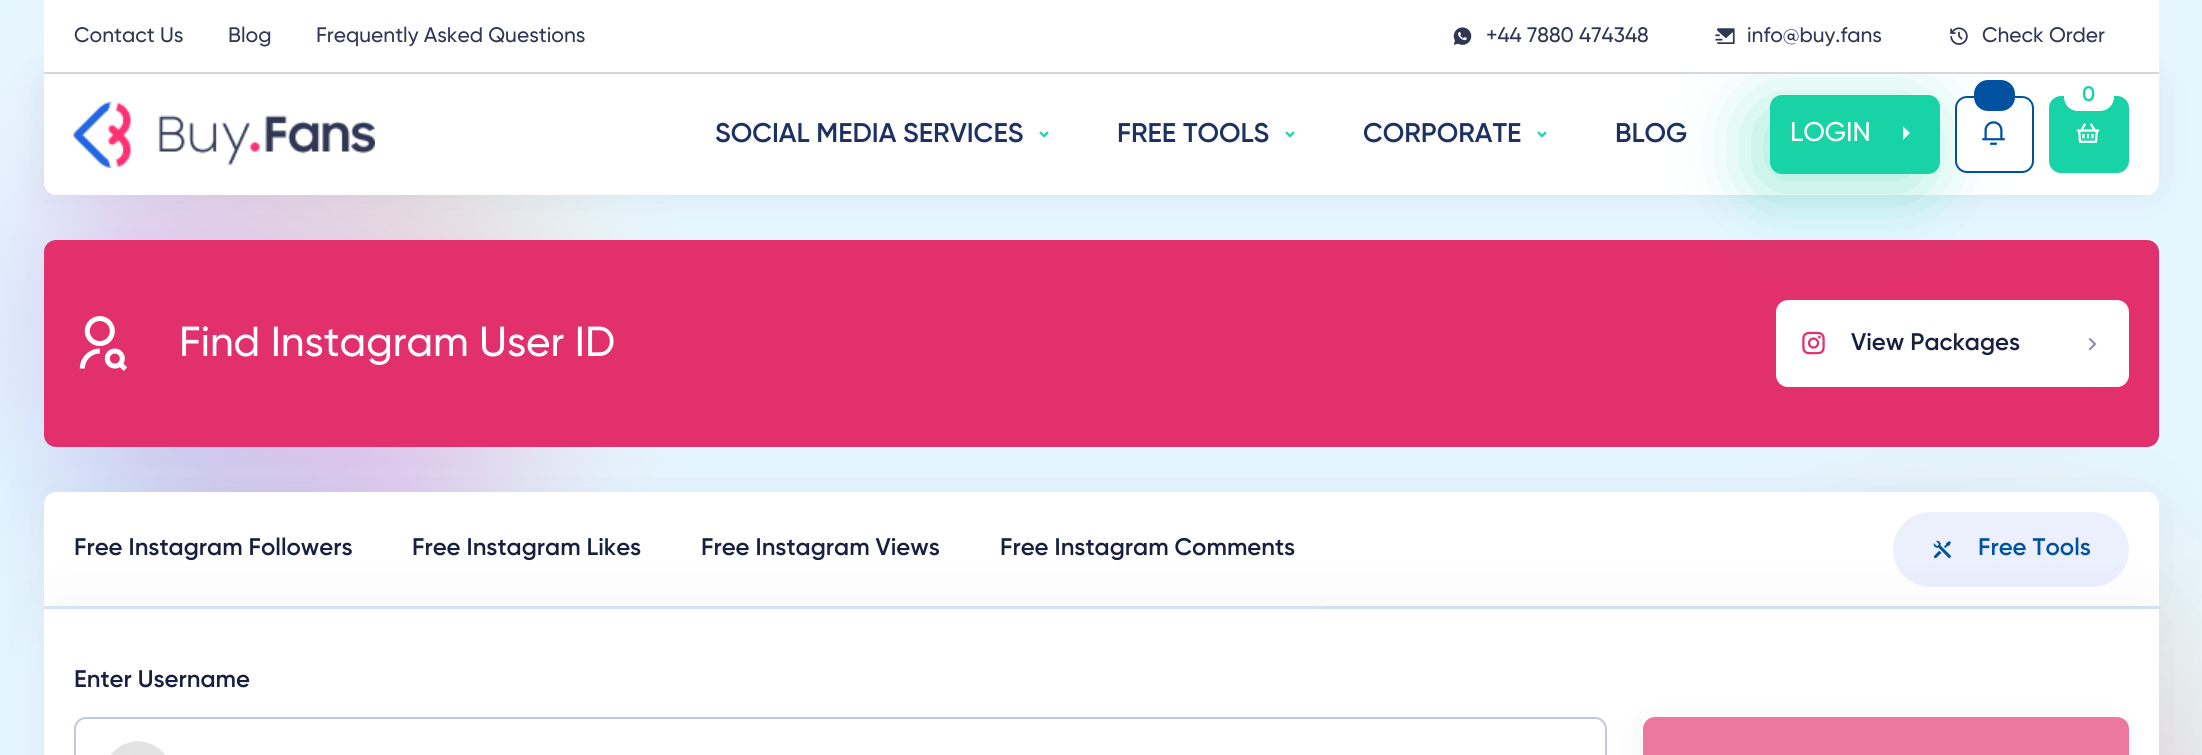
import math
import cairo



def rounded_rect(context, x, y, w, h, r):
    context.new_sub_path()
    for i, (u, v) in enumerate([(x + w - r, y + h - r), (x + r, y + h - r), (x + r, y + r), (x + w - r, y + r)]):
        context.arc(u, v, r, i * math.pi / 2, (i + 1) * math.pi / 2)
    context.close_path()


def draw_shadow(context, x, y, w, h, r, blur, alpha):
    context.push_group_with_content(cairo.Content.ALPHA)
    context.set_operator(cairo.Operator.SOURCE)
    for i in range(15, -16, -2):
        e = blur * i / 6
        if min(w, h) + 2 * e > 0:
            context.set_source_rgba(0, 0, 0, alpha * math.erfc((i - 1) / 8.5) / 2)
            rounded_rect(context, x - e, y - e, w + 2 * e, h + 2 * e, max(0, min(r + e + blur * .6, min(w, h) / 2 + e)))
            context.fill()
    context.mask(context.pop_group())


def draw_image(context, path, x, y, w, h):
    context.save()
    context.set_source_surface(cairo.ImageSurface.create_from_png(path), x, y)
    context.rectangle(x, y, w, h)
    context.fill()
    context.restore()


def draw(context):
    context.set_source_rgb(1, 1, 1)
    context.paint()
    draw_image(context, "images/1.png", 0, 0, 2202, 755)
    context.set_source_rgb(225 / 255, 48 / 255, 108 / 255)
    rounded_rect(context, 44, 240, 2115, 207, 12)
    context.fill()
    context.set_source_rgb(48 / 255, 55 / 255, 84 / 255)
    draw_shadow(context, 44, 74, 2115, 121, 12, 18, 0.08)
    context.set_source_rgb(1, 1, 1)
    context.new_path()
    context.move_to(44, 74)
    context.line_to(2159, 74)
    context.line_to(2159, 183)
    context.curve_to(2159, 189.5, 2153.5, 195, 2147, 195)
    context.line_to(56, 195)
    context.curve_to(49.5, 195, 44, 189.5, 44, 183)
    context.close_path()
    context.fill()
    context.set_source_rgb(25 / 255, 209 / 255, 167 / 255)
    draw_shadow(context, 1757, 108, 169, 80, 12, 37, 0.42)
    context.set_source_rgb(1, 1, 1)
    context.rectangle(44, 0, 2115, 72)
    context.fill()
    context.set_source_rgb(214 / 255, 215 / 255, 221 / 255)
    context.rectangle(44, 72, 2115, 2)
    context.fill()
    draw_image(context, "images/2.png", 1453, 27, 19, 18)
    draw_image(context, "images/3.png", 1715, 28, 20, 16)
    draw_image(context, "images/4.png", 1950, 27, 18, 18)
    draw_image(context, "images/5.png", 73, 102, 302, 66)
    context.set_source_rgb(1, 1, 1)
    rounded_rect(context, 1956, 97, 77, 75, 11)
    context.fill_preserve()
    context.set_source_rgb(0, 82 / 255, 160 / 255)
    context.stroke()
    rounded_rect(context, 1974, 80, 41, 31, 14)
    context.fill()
    draw_image(context, "images/6.png", 1982, 121, 23, 24)
    context.set_source_rgb(24 / 255, 211 / 255, 166 / 255)
    rounded_rect(context, 2049, 96, 80, 77, 12)
    context.fill()
    context.set_source_rgb(1, 1, 1)
    rounded_rect(context, 2064, 80, 50, 31, 14)
    context.fill()
    draw_image(context, "images/7.png", 2076, 123, 24, 20)
    draw_image(context, "images/8.png", 1039, 131, 10, 7)
    draw_image(context, "images/8.png", 1285, 131, 10, 7)
    draw_image(context, "images/8.png", 1537, 131, 10, 7)
    context.set_source_rgb(24 / 255, 211 / 255, 166 / 255)
    rounded_rect(context, 1770, 95, 170, 79, 12)
    context.fill()
    context.set_source_rgb(1, 1, 1)
    context.new_path()
    context.move_to(1910, 133)
    context.line_to(1903, 140)
    context.line_to(1903, 126.5)
    context.close_path()
    context.fill()
    draw_image(context, "images/9.png", 79, 316, 49, 55)
    rounded_rect(context, 1776, 300, 353, 87, 12)
    context.fill()
    draw_image(context, "images/10.png", 1802, 331, 23, 24)
    draw_image(context, "images/11.png", 2088, 337, 9, 14)
    context.set_source_rgb(48 / 255, 55 / 255, 84 / 255)
    draw_shadow(context, 44, 492, 2115, 117, 12, 30, 0.06)
    context.set_source_rgb(1, 1, 1)
    context.new_path()
    context.move_to(56, 492)
    context.line_to(2147, 492)
    context.curve_to(2153.5, 492, 2159, 497.5, 2159, 504)
    context.line_to(2159, 609)
    context.line_to(44, 609)
    context.line_to(44, 504)
    context.curve_to(44, 497.5, 49.5, 492, 56, 492)
    context.close_path()
    context.fill()
    context.set_source_rgb(211 / 255, 229 / 255, 240 / 255)
    context.rectangle(1325, 606, 834, 3)
    context.fill()
    context.set_source_rgb(48 / 255, 55 / 255, 84 / 255)
    draw_shadow(context, 44, 609, 2115, 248, 12, 30, 0.06)
    context.set_source_rgb(211 / 255, 229 / 255, 240 / 255)
    context.rectangle(44, 606, 1281, 3)
    context.fill()
    context.set_source_rgba(69 / 255, 94 / 255, 224 / 255, 0.1)
    rounded_rect(context, 1893, 512, 236, 75, 37.5)
    context.fill()
    draw_image(context, "images/12.png", 1933, 540, 19, 19)
    context.set_source_rgb(1, 1, 1)
    context.rectangle(44, 609, 2115, 146)
    context.fill()
    rounded_rect(context, 75, 718, 1531, 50, 11)
    context.set_source_rgb(192 / 255, 199 / 255, 223 / 255)
    context.stroke()
    draw_image(context, "images/13.png", 111, 741, 54, 14)
    context.set_source_rgb(120 / 255, 125 / 255, 144 / 255)
    draw_shadow(context, 1638, 722, 486, 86, 12, 13.5, 0.08)
    context.set_source_rgb(236 / 255, 120 / 255, 159 / 255)
    rounded_rect(context, 1643, 717, 486, 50, 12)
    context.fill()
    context.select_font_face("Gilroy Medium")
    context.set_font_size(21)
    context.set_source_rgb(48 / 255, 55 / 255, 84 / 255)
    context.move_to(74, 42)
    context.show_text("Contact Us")
    context.move_to(228, 42)
    context.show_text("Blog")
    context.move_to(316, 42)
    context.show_text("Frequently Asked Questions")
    context.move_to(1486, 42)
    context.show_text("+44 7880 474348")
    context.move_to(1747, 42)
    context.show_text("info@buy.fans")
    context.move_to(1982, 42)
    context.show_text("Check Order")
    context.select_font_face("Gilroy SemiBold")
    context.set_source_rgb(24 / 255, 211 / 255, 166 / 255)
    context.move_to(2082, 101)
    context.show_text("0")
    context.set_font_size(27)
    context.set_source_rgb(29 / 255, 49 / 255, 99 / 255)
    context.move_to(715, 142)
    context.show_text("SOCIAL MEDIA SERVICES")
    context.move_to(1117, 142)
    context.show_text("FREE TOOLS")
    context.move_to(1363, 142)
    context.show_text("CORPORATE")
    context.move_to(1615, 142)
    context.show_text("BLOG")
    context.select_font_face("Gilroy Medium")
    context.set_source_rgb(1, 1, 1)
    context.move_to(1790, 141)
    context.show_text("LOGIN")
    context.set_font_size(42)
    context.move_to(179, 356)
    context.show_text("Find Instagram User ID")
    context.select_font_face("Gilroy SemiBold")
    context.set_font_size(24)
    context.set_source_rgb(25 / 255, 32 / 255, 63 / 255)
    context.move_to(1851, 350)
    context.show_text("View Packages")
    context.move_to(74, 555)
    context.show_text("Free Instagram Followers")
    context.move_to(412, 555)
    context.show_text("Free Instagram Likes")
    context.move_to(701, 555)
    context.show_text("Free Instagram Views")
    context.move_to(1000, 555)
    context.show_text("Free Instagram Comments")
    context.set_source_rgb(0, 82 / 255, 160 / 255)
    context.move_to(1978, 555)
    context.show_text("Free Tools")
    context.set_source_rgb(25 / 255, 32 / 255, 63 / 255)
    context.move_to(74, 687)
    context.show_text("Enter Username")


surface = cairo.ImageSurface(cairo.Format.RGB24, 2202, 755)
context = cairo.Context(surface)
options = cairo.FontOptions()
options.set_hint_metrics(cairo.HintMetrics.OFF)
options.set_hint_style(cairo.HintStyle.NONE)
context.set_font_options(options)
context.set_miter_limit(4)
draw(context)
surface.write_to_png("out.png")
